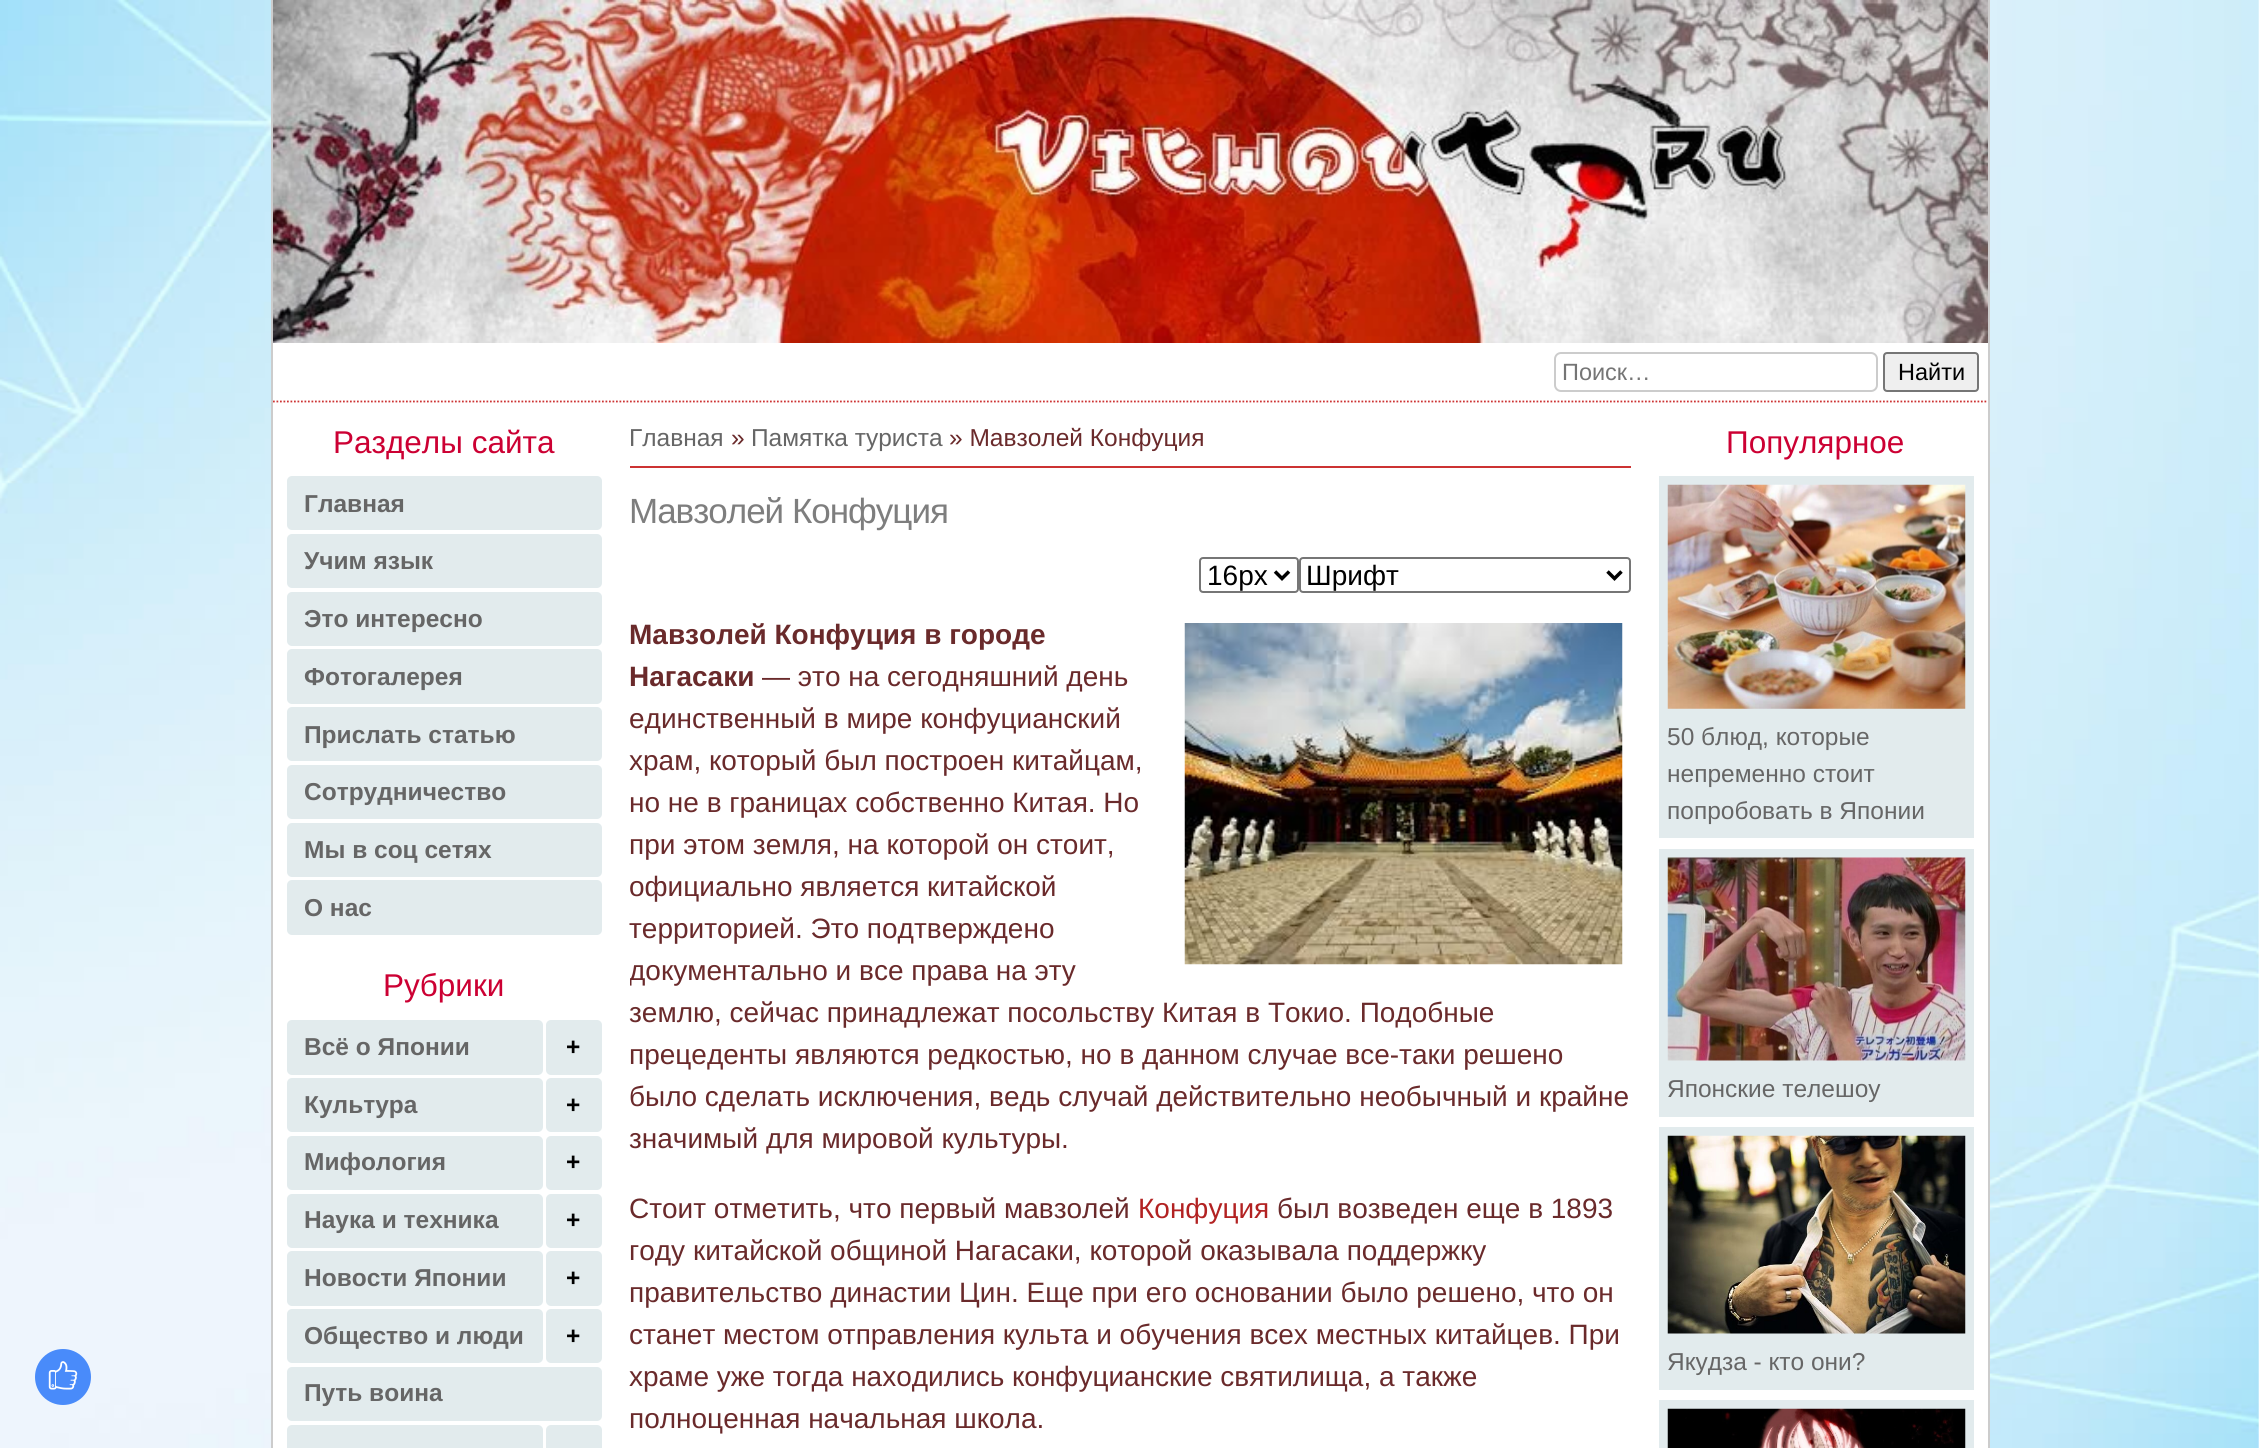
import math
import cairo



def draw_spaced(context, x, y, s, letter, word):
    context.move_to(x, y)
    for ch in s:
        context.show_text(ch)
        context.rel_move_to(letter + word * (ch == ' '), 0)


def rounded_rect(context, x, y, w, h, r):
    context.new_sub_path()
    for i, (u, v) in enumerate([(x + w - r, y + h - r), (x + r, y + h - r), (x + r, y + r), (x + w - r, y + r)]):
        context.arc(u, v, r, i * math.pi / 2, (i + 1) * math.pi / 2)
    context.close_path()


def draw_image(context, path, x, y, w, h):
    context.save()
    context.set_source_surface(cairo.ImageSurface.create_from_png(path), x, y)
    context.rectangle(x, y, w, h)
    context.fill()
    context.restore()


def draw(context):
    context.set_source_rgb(1, 1, 1)
    context.paint()
    draw_image(context, "images/1.png", 0, 0, 2259, 1448)
    context.set_source_rgb(1, 1, 1)
    context.rectangle(273, 343, 1715, 1105)
    context.fill()
    context.set_source_rgb(204 / 255, 204 / 255, 204 / 255)
    context.rectangle(1988, 0, 2, 1448)
    context.fill()
    context.rectangle(271, 0, 2, 1448)
    context.fill()
    draw_image(context, "images/2.png", 273, 0, 1715, 343)
    context.new_path()
    context.move_to(273, 401.5)
    context.line_to(1988, 401.5)
    context.set_source_rgb(204 / 255, 51 / 255, 51 / 255)
    context.set_line_width(1.8)
    context.set_dash([1.75, 1.75])
    context.stroke()
    rounded_rect(context, 1555, 353, 322, 38, 6)
    context.set_source_rgb(204 / 255, 204 / 255, 204 / 255)
    context.set_line_width(2)
    context.set_dash([])
    context.stroke()
    context.set_source_rgb(239 / 255, 239 / 255, 239 / 255)
    rounded_rect(context, 1884, 353, 94, 38, 3)
    context.fill_preserve()
    context.set_source_rgb(118 / 255, 118 / 255, 118 / 255)
    context.stroke()
    context.set_source_rgb(226 / 255, 235 / 255, 237 / 255)
    rounded_rect(context, 287, 476, 315, 54, 5)
    context.fill()
    rounded_rect(context, 287, 534, 315, 54, 5)
    context.fill()
    rounded_rect(context, 287, 592, 315, 54, 5)
    context.fill()
    rounded_rect(context, 287, 649, 315, 55, 5)
    context.fill()
    rounded_rect(context, 287, 707, 315, 54, 5)
    context.fill()
    rounded_rect(context, 287, 765, 315, 54, 5)
    context.fill()
    rounded_rect(context, 287, 823, 315, 54, 5)
    context.fill()
    rounded_rect(context, 287, 880, 315, 55, 5)
    context.fill()
    rounded_rect(context, 287, 1020, 256, 55, 5)
    context.fill()
    rounded_rect(context, 546, 1020, 56, 55, 5)
    context.fill()
    rounded_rect(context, 287, 1078, 256, 54, 5)
    context.fill()
    rounded_rect(context, 546, 1078, 56, 54, 5)
    context.fill()
    rounded_rect(context, 287, 1136, 256, 54, 5)
    context.fill()
    rounded_rect(context, 546, 1136, 56, 54, 5)
    context.fill()
    rounded_rect(context, 287, 1194, 256, 54, 5)
    context.fill()
    rounded_rect(context, 546, 1194, 56, 54, 5)
    context.fill()
    rounded_rect(context, 287, 1251, 256, 55, 5)
    context.fill()
    rounded_rect(context, 546, 1251, 56, 55, 5)
    context.fill()
    rounded_rect(context, 287, 1309, 256, 54, 5)
    context.fill()
    rounded_rect(context, 546, 1309, 56, 54, 5)
    context.fill()
    rounded_rect(context, 287, 1367, 315, 54, 5)
    context.fill()
    rounded_rect(context, 287, 1425, 256, 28, 5)
    context.fill()
    rounded_rect(context, 546, 1425, 56, 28, 5)
    context.fill()
    context.set_source_rgb(204 / 255, 51 / 255, 51 / 255)
    context.rectangle(630, 466, 1001, 2)
    context.fill()
    context.set_source_rgb(73 / 255, 139 / 255, 250 / 255)
    context.arc(63, 1377, 28, 0, 2 * math.pi)
    context.fill()
    draw_image(context, "images/3.png", 48, 1361, 30, 29)
    rounded_rect(context, 1200, 558, 98, 34, 3)
    context.set_source_rgb(118 / 255, 118 / 255, 118 / 255)
    context.stroke()
    context.new_path()
    context.move_to(1275, 571.5)
    context.line_to(1282, 578.5)
    context.line_to(1289, 571.5)
    context.set_source_rgb(0, 0, 0)
    context.set_line_width(3.5)
    context.stroke()
    rounded_rect(context, 1300, 558, 330, 34, 3)
    context.set_source_rgb(118 / 255, 118 / 255, 118 / 255)
    context.set_line_width(2)
    context.stroke()
    context.new_path()
    context.move_to(1607.5, 571.5)
    context.line_to(1614.5, 578.5)
    context.line_to(1621.5, 571.5)
    context.set_source_rgb(0, 0, 0)
    context.set_line_width(3.5)
    context.stroke()
    draw_image(context, "images/4.png", 1184, 623, 439, 342)
    context.set_source_rgb(226 / 255, 235 / 255, 237 / 255)
    context.rectangle(1659, 476, 315, 362)
    context.fill()
    draw_image(context, "images/5.png", 1667, 484, 299, 225)
    context.rectangle(1659, 849, 315, 268)
    context.fill()
    draw_image(context, "images/6.png", 1667, 857, 299, 204)
    context.rectangle(1659, 1127, 315, 263)
    context.fill()
    draw_image(context, "images/7.png", 1667, 1135, 299, 199)
    context.rectangle(1659, 1400, 315, 48)
    context.fill()
    draw_image(context, "images/8.png", 1667, 1408, 299, 40)
    context.select_font_face("Liberation Sans")
    context.set_font_size(23.5)
    context.set_source_rgb(117 / 255, 117 / 255, 117 / 255)
    context.move_to(1562, 380)
    context.show_text("Поиск…")
    context.set_source_rgb(0, 0, 0)
    context.move_to(1898, 380)
    context.show_text("Найти")
    context.set_font_size(31.5)
    context.set_source_rgb(204 / 255, 0, 51 / 255)
    context.move_to(333, 453)
    context.show_text("Разделы сайта")
    context.select_font_face("Liberation Sans", cairo.FontSlant.NORMAL, cairo.FontWeight.BOLD)
    context.set_font_size(24.5)
    context.set_source_rgb(102 / 255, 102 / 255, 102 / 255)
    context.move_to(304, 512)
    context.show_text("Главная")
    context.move_to(304, 569)
    context.show_text("Учим язык")
    context.move_to(304, 627)
    context.show_text("Это интересно")
    context.move_to(304, 685)
    context.show_text("Фотогалерея")
    context.move_to(304, 743)
    context.show_text("Прислать статью")
    context.move_to(304, 800)
    context.show_text("Сотрудничество")
    context.move_to(304, 858)
    context.show_text("Мы в соц сетях")
    context.move_to(304, 916)
    context.show_text("О нас")
    context.select_font_face("Liberation Sans")
    context.set_font_size(31.5)
    context.set_source_rgb(204 / 255, 0, 51 / 255)
    context.move_to(383, 996)
    context.show_text("Рубрики")
    context.select_font_face("Liberation Sans", cairo.FontSlant.NORMAL, cairo.FontWeight.BOLD)
    context.set_font_size(24.5)
    context.set_source_rgb(102 / 255, 102 / 255, 102 / 255)
    context.move_to(304, 1055)
    context.show_text("Всё о Японии")
    context.set_source_rgb(0, 0, 0)
    context.move_to(566, 1055)
    context.show_text("+")
    context.set_source_rgb(102 / 255, 102 / 255, 102 / 255)
    context.move_to(304, 1113)
    context.show_text("Культура")
    context.set_source_rgb(0, 0, 0)
    context.move_to(566, 1113)
    context.show_text("+")
    context.set_source_rgb(102 / 255, 102 / 255, 102 / 255)
    context.move_to(304, 1170)
    context.show_text("Мифология")
    context.set_source_rgb(0, 0, 0)
    context.move_to(566, 1170)
    context.show_text("+")
    context.set_source_rgb(102 / 255, 102 / 255, 102 / 255)
    context.move_to(304, 1228)
    context.show_text("Наука и техника")
    context.set_source_rgb(0, 0, 0)
    context.move_to(566, 1228)
    context.show_text("+")
    context.set_source_rgb(102 / 255, 102 / 255, 102 / 255)
    context.move_to(304, 1286)
    context.show_text("Новости Японии")
    context.set_source_rgb(0, 0, 0)
    context.move_to(566, 1286)
    context.show_text("+")
    context.set_source_rgb(102 / 255, 102 / 255, 102 / 255)
    context.move_to(304, 1344)
    context.show_text("Общество и люди")
    context.set_source_rgb(0, 0, 0)
    context.move_to(566, 1344)
    context.show_text("+")
    context.set_source_rgb(102 / 255, 102 / 255, 102 / 255)
    context.move_to(304, 1401)
    context.show_text("Путь воина")
    context.select_font_face("Liberation Sans")
    context.move_to(629, 446)
    context.show_text("Главная")
    context.set_source_rgb(106 / 255, 42 / 255, 43 / 255)
    context.move_to(731, 446)
    context.show_text("»")
    context.set_source_rgb(102 / 255, 102 / 255, 102 / 255)
    context.move_to(751, 446)
    context.show_text("Памятка туриста")
    context.set_source_rgb(106 / 255, 42 / 255, 43 / 255)
    context.move_to(949, 446)
    context.show_text("» Мавзолей Конфуция")
    context.set_font_size(35)
    context.set_source_rgb(126 / 255, 126 / 255, 126 / 255)
    draw_spaced(context, 629, 523, "Мавзолей Конфуция", -1, 0)
    context.set_font_size(28)
    context.set_source_rgb(0, 0, 0)
    context.move_to(1207, 585)
    context.show_text("16px")
    context.move_to(1306, 585)
    context.show_text("Шрифт")
    context.select_font_face("Liberation Sans", cairo.FontSlant.NORMAL, cairo.FontWeight.BOLD)
    context.set_source_rgb(106 / 255, 42 / 255, 43 / 255)
    context.move_to(629, 644)
    context.show_text("Мавзолей Конфуция в городе")
    context.move_to(629, 686)
    context.show_text("Нагасаки")
    context.select_font_face("Liberation Sans")
    context.move_to(762, 686)
    context.show_text("— это на сегодняшний день")
    context.move_to(629, 728)
    context.show_text("единственный в мире конфуцианский")
    context.move_to(629, 770)
    context.show_text("храм, который был построен китайцам,")
    context.move_to(629, 812)
    context.show_text("но не в границах собственно Китая. Но")
    context.move_to(629, 854)
    context.show_text("при этом земля, на которой он стоит,")
    context.move_to(629, 896)
    context.show_text("официально является китайской")
    context.move_to(629, 938)
    context.show_text("территорией. Это подтверждено")
    context.save()
    context.rectangle(630, 485, 1001, 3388)
    context.clip()
    context.move_to(629, 980)
    context.show_text("документально и все права на эту")
    context.restore()
    context.move_to(629, 1022)
    context.show_text("землю, сейчас принадлежат посольству Китая в Токио. Подобные")
    context.move_to(629, 1064)
    context.show_text("прецеденты являются редкостью, но в данном случае все-таки решено")
    context.move_to(629, 1106)
    context.show_text("было сделать исключения, ведь случай действительно необычный и крайне")
    context.move_to(629, 1148)
    context.show_text("значимый для мировой культуры.")
    context.move_to(629, 1218)
    context.show_text("Стоит отметить, что первый мавзолей")
    context.set_source_rgb(178 / 255, 34 / 255, 34 / 255)
    context.move_to(1138, 1218)
    context.show_text("Конфуция")
    context.set_source_rgb(106 / 255, 42 / 255, 43 / 255)
    context.move_to(1277, 1218)
    context.show_text("был возведен еще в 1893")
    context.move_to(629, 1260)
    context.show_text("году китайской общиной Нагасаки, которой оказывала поддержку")
    context.move_to(629, 1302)
    context.show_text("правительство династии Цин. Еще при его основании было решено, что он")
    context.move_to(629, 1344)
    context.show_text("станет местом отправления культа и обучения всех местных китайцев. При")
    context.move_to(629, 1386)
    context.show_text("храме уже тогда находились конфуцианские святилища, а также")
    context.move_to(629, 1428)
    context.show_text("полноценная начальная школа.")
    context.set_font_size(31.5)
    context.set_source_rgb(204 / 255, 0, 51 / 255)
    context.move_to(1726, 453)
    context.show_text("Популярное")
    context.set_font_size(24.5)
    context.set_source_rgb(102 / 255, 102 / 255, 102 / 255)
    context.move_to(1667, 745)
    context.show_text("50 блюд, которые")
    context.move_to(1667, 782)
    context.show_text("непременно стоит")
    context.move_to(1667, 819)
    context.show_text("попробовать в Японии")
    context.move_to(1667, 1097)
    context.show_text("Японские телешоу")
    context.move_to(1667, 1370)
    context.show_text("Якудза - кто они?")


surface = cairo.ImageSurface(cairo.Format.RGB24, 2259, 1448)
context = cairo.Context(surface)
options = cairo.FontOptions()
options.set_hint_metrics(cairo.HintMetrics.OFF)
options.set_hint_style(cairo.HintStyle.NONE)
context.set_font_options(options)
context.set_miter_limit(4)
draw(context)
surface.write_to_png("out.png")
